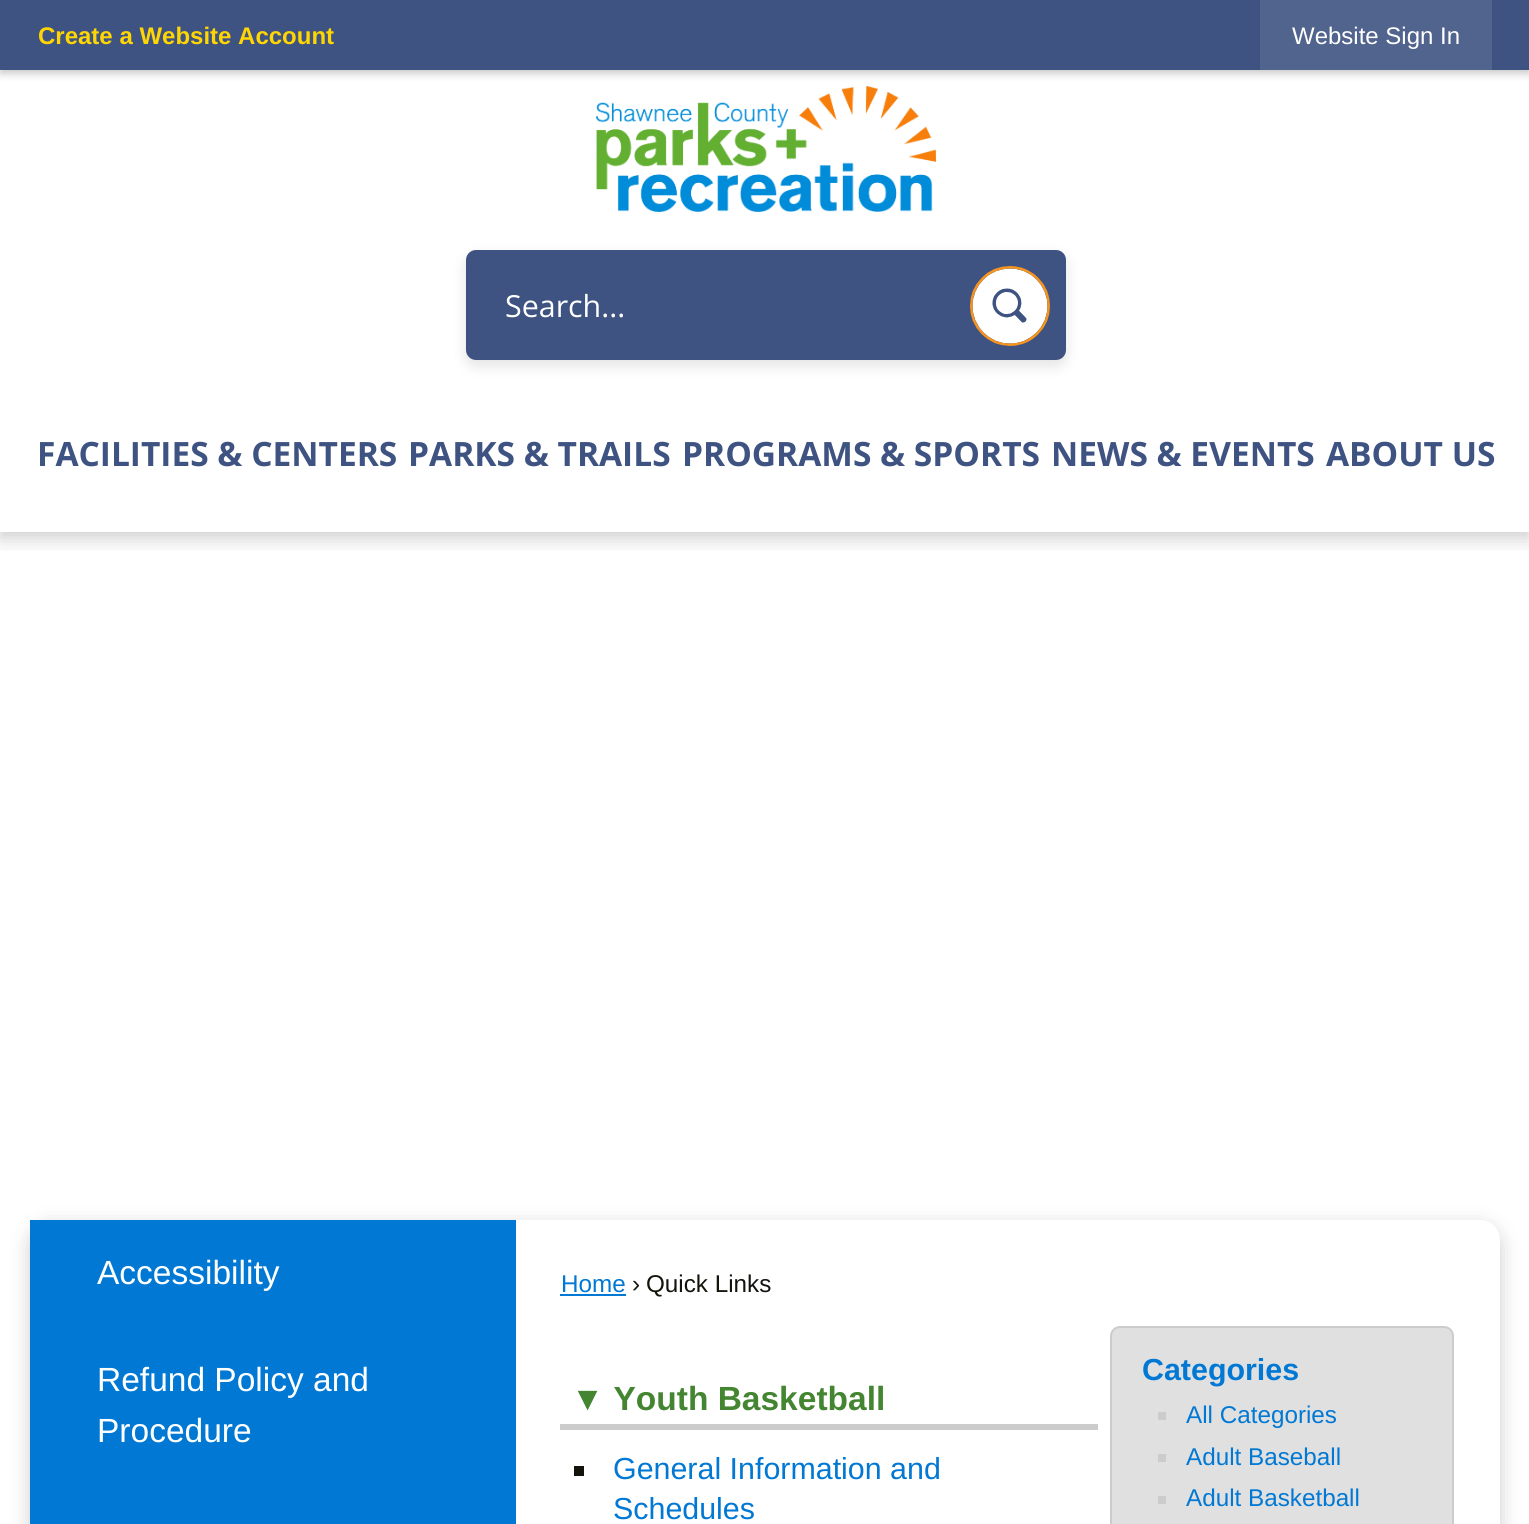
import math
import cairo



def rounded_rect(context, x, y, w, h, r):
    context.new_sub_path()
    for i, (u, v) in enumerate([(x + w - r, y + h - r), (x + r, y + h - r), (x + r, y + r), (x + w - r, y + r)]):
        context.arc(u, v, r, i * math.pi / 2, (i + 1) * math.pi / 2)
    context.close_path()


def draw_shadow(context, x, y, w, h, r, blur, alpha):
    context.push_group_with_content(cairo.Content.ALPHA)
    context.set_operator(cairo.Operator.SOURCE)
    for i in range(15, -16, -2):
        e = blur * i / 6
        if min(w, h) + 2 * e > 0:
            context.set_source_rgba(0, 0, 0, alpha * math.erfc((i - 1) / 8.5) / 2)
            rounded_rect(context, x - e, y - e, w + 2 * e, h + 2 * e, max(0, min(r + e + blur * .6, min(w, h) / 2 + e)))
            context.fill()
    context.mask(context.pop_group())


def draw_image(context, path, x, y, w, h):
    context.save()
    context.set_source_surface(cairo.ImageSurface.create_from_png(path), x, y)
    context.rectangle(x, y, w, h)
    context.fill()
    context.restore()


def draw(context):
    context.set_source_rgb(1, 1, 1)
    context.paint()
    context.save()
    context.rectangle(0, 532, 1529, 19)
    context.clip()
    context.set_source_rgb(0, 0, 0)
    draw_shadow(context, 0, 76, 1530, 462, 0, 10, 0.2)
    context.restore()
    draw_image(context, "images/1.png", 596, 86, 340, 126)
    context.set_source_rgb(0, 0, 0)
    draw_shadow(context, 0, 4, 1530, 70, 0, 4, 0.2)
    context.set_source_rgb(62 / 255, 83 / 255, 129 / 255)
    context.rectangle(0, 0, 1529, 70)
    context.fill()
    context.set_source_rgb(81 / 255, 100 / 255, 142 / 255)
    context.rectangle(1260, 0, 232, 70)
    context.fill()
    context.set_source_rgb(0, 0, 0)
    draw_shadow(context, 466, 256, 600, 110, 10, 7, 0.11)
    context.set_source_rgb(62 / 255, 83 / 255, 129 / 255)
    rounded_rect(context, 466, 250, 600, 110, 10)
    context.fill()
    draw_image(context, "images/2.png", 970, 266, 80, 80)
    context.set_source_rgb(0, 0, 0)
    draw_shadow(context, 30, 1226, 1470, 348, 20, 10, 0.2)
    context.set_source_rgb(1, 1, 1)
    rounded_rect(context, 30, 1220, 1470, 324, 20)
    context.fill()
    context.set_source_rgb(0, 120 / 255, 212 / 255)
    context.rectangle(30, 1220, 486, 304)
    context.fill()
    context.rectangle(560, 1294, 66, 2)
    context.fill()
    context.set_source_rgb(204 / 255, 204 / 255, 204 / 255)
    context.rectangle(560, 1424, 538, 6)
    context.fill()
    context.set_source_rgb(20 / 255, 20 / 255, 12 / 255)
    context.rectangle(574, 1466, 10, 10)
    context.fill()
    context.set_source_rgb(224 / 255, 224 / 255, 224 / 255)
    rounded_rect(context, 1111, 1327, 342, 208, 9)
    context.fill_preserve()
    context.set_source_rgb(204 / 255, 204 / 255, 204 / 255)
    context.stroke()
    context.rectangle(1158, 1412, 8, 8)
    context.fill()
    context.rectangle(1158, 1454, 8, 8)
    context.fill()
    context.rectangle(1158, 1496, 8, 8)
    context.fill()
    context.select_font_face("Liberation Sans", cairo.FontSlant.NORMAL, cairo.FontWeight.BOLD)
    context.set_font_size(24)
    context.set_source_rgb(1, 213 / 255, 3 / 255)
    context.move_to(38, 44)
    context.show_text("Create a Website Account")
    context.select_font_face("Liberation Sans")
    context.set_source_rgb(1, 1, 1)
    context.move_to(1292, 44)
    context.show_text("Website Sign In")
    context.select_font_face("Open Sans")
    context.set_font_size(30.4)
    context.move_to(505, 317)
    context.show_text("Search...")
    context.select_font_face("Open Sans", cairo.FontSlant.NORMAL, cairo.FontWeight.BOLD)
    context.set_font_size(33.5)
    context.set_source_rgb(62 / 255, 83 / 255, 129 / 255)
    context.move_to(37, 466)
    context.show_text("FACILITIES & CENTERS")
    context.move_to(408, 466)
    context.show_text("PARKS & TRAILS")
    context.move_to(682, 466)
    context.show_text("PROGRAMS & SPORTS")
    context.move_to(1051, 466)
    context.show_text("NEWS & EVENTS")
    context.move_to(1326, 466)
    context.show_text("ABOUT US")
    context.select_font_face("Liberation Sans")
    context.set_source_rgb(1, 1, 1)
    context.move_to(97, 1284)
    context.show_text("Accessibility")
    context.move_to(97, 1391)
    context.show_text("Refund Policy and")
    context.move_to(97, 1442)
    context.show_text("Procedure")
    context.set_font_size(24.25)
    context.set_source_rgb(0, 120 / 255, 212 / 255)
    context.move_to(561, 1292)
    context.show_text("Home")
    context.set_source_rgb(20 / 255, 20 / 255, 12 / 255)
    context.move_to(632, 1292)
    context.show_text("›")
    context.move_to(646, 1292)
    context.show_text("Quick Links")
    context.select_font_face("Liberation Sans", cairo.FontSlant.NORMAL, cairo.FontWeight.BOLD)
    context.set_font_size(33.5)
    context.set_source_rgb(67 / 255, 133 / 255, 49 / 255)
    context.move_to(571, 1410)
    context.show_text("▼ Youth Basketball")
    context.select_font_face("Liberation Sans")
    context.set_font_size(30.4)
    context.set_source_rgb(0, 120 / 255, 212 / 255)
    context.move_to(613, 1479)
    context.show_text("General Information and")
    context.move_to(613, 1519)
    context.show_text("Schedules")
    context.select_font_face("Liberation Sans", cairo.FontSlant.NORMAL, cairo.FontWeight.BOLD)
    context.move_to(1142, 1380)
    context.show_text("Categories")
    context.select_font_face("Liberation Sans")
    context.set_font_size(24.25)
    context.move_to(1186, 1423)
    context.show_text("All Categories")
    context.move_to(1186, 1465)
    context.show_text("Adult Baseball")
    context.move_to(1186, 1506)
    context.show_text("Adult Basketball")


surface = cairo.ImageSurface(cairo.Format.RGB24, 1529, 1524)
context = cairo.Context(surface)
options = cairo.FontOptions()
options.set_hint_metrics(cairo.HintMetrics.OFF)
options.set_hint_style(cairo.HintStyle.NONE)
context.set_font_options(options)
context.set_miter_limit(4)
draw(context)
surface.write_to_png("out.png")
